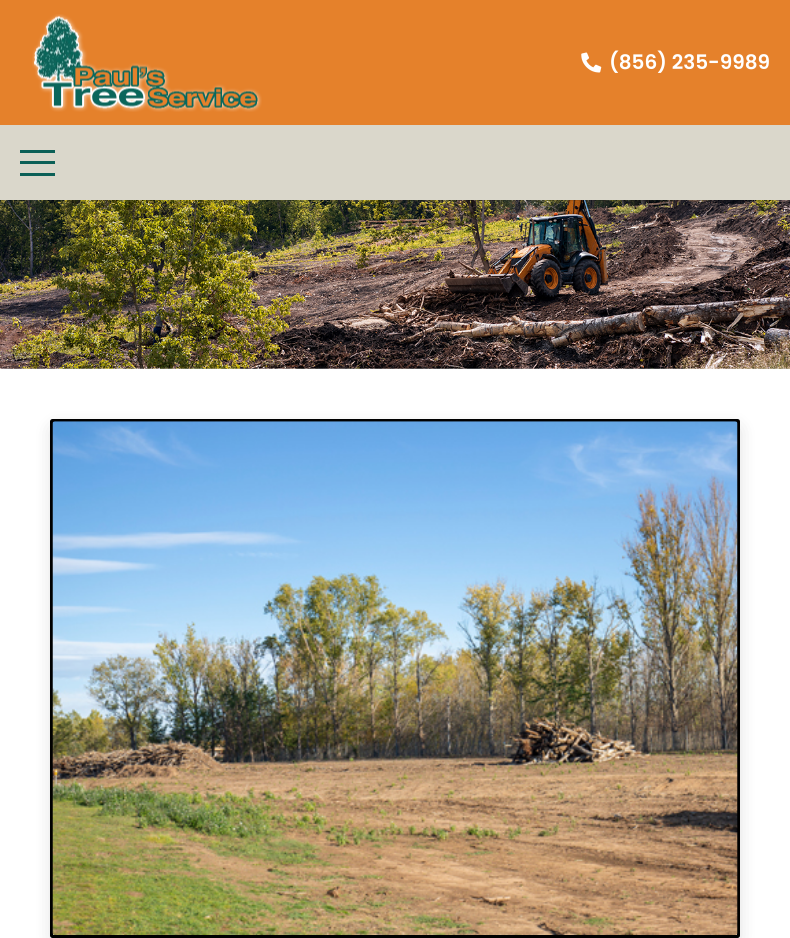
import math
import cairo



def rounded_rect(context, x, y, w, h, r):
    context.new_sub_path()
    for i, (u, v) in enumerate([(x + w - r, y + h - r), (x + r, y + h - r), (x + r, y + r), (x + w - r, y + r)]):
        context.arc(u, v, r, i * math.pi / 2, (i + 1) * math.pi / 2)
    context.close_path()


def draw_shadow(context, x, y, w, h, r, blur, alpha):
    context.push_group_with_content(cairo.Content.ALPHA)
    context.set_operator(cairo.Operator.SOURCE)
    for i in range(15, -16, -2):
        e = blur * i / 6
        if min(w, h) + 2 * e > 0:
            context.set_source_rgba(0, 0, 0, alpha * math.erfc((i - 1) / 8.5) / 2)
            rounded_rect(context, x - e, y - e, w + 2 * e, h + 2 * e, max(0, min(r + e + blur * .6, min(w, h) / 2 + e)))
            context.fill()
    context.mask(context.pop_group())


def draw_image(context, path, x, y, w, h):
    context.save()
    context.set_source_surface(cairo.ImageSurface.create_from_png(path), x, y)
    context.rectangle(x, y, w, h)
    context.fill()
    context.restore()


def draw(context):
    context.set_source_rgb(1, 1, 1)
    context.paint()
    context.set_source_rgb(229 / 255, 129 / 255, 43 / 255)
    context.rectangle(0, 0, 790, 125)
    context.fill()
    draw_image(context, "images/1.png", 32, 14, 230, 98)
    draw_image(context, "images/2.png", 581, 52, 21, 21)
    draw_image(context, "images/3.png", 0, 200, 790, 169)
    context.set_source_rgba(0, 0, 0, 0.08)
    context.rectangle(0, 200, 790, 1)
    context.fill()
    context.set_source_rgb(218 / 255, 215 / 255, 203 / 255)
    context.rectangle(0, 125, 790, 75)
    context.fill()
    context.set_source_rgb(12 / 255, 96 / 255, 87 / 255)
    context.rectangle(20, 161, 35, 3)
    context.fill()
    context.rectangle(20, 150, 35, 3)
    context.fill()
    context.rectangle(20, 173, 35, 3)
    context.fill()
    rounded_rect(context, 51.5, 420.5, 687, 516, 1)
    context.set_source_rgb(0, 0, 0)
    context.set_line_width(3)
    context.stroke()
    context.set_source_rgb(0, 0, 0)
    draw_shadow(context, 53, 428, 685, 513, 2.5, 9.5, 0.15)
    draw_image(context, "images/4.png", 52, 421, 686, 514)
    context.select_font_face("Poppins SemiBold")
    context.set_font_size(20)
    context.set_source_rgb(1, 1, 1)
    context.move_to(609, 69)
    context.show_text("(856) 235-9989")


surface = cairo.ImageSurface(cairo.Format.RGB24, 790, 938)
context = cairo.Context(surface)
options = cairo.FontOptions()
options.set_hint_metrics(cairo.HintMetrics.OFF)
options.set_hint_style(cairo.HintStyle.NONE)
context.set_font_options(options)
context.set_miter_limit(4)
draw(context)
surface.write_to_png("out.png")
